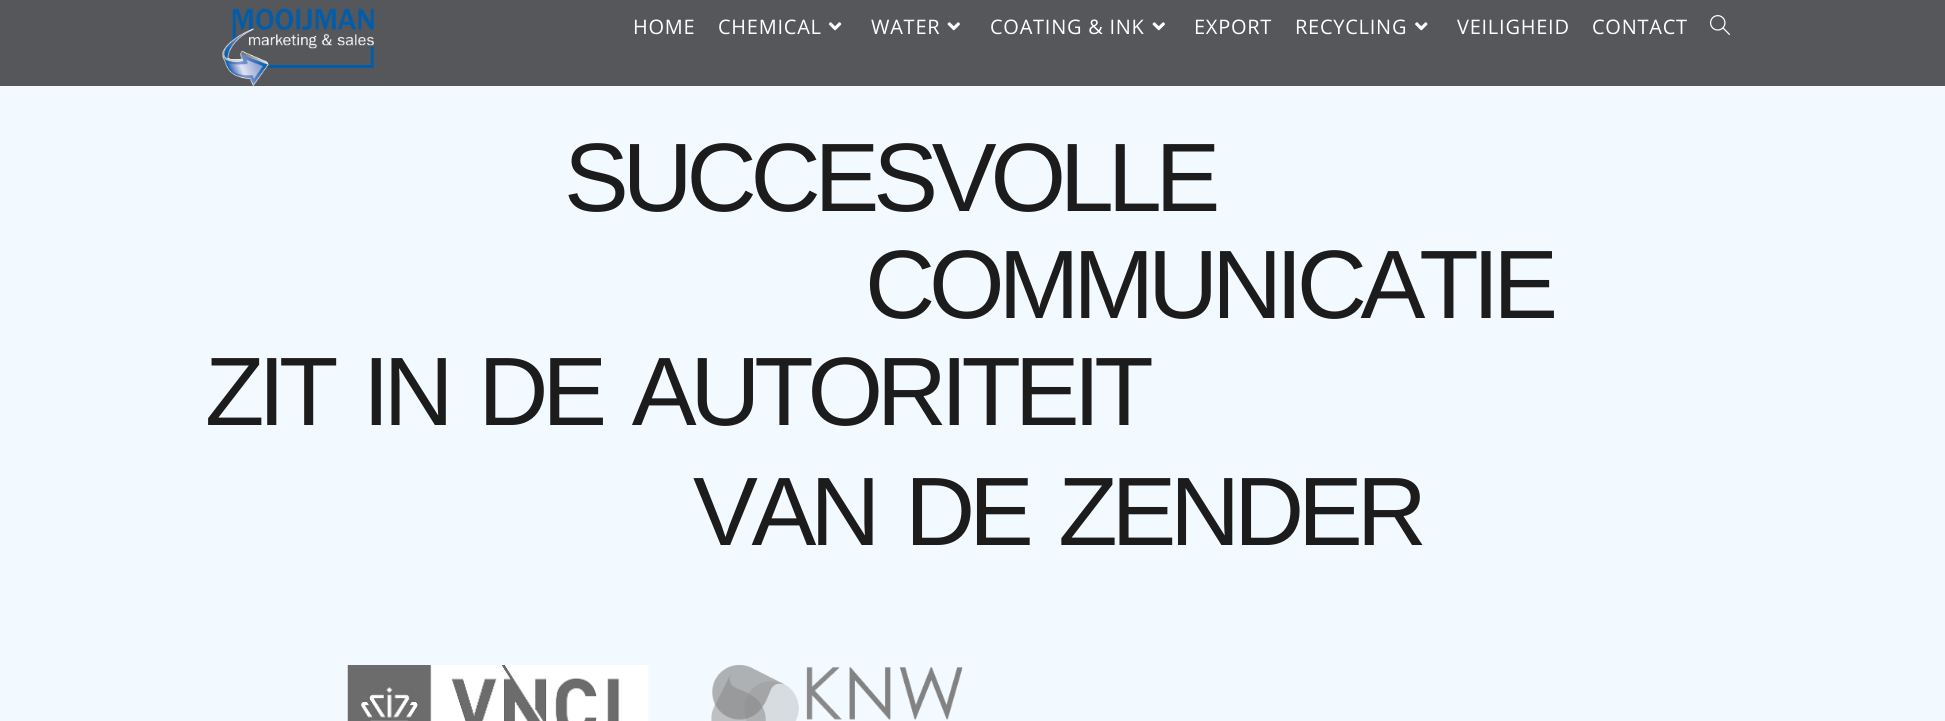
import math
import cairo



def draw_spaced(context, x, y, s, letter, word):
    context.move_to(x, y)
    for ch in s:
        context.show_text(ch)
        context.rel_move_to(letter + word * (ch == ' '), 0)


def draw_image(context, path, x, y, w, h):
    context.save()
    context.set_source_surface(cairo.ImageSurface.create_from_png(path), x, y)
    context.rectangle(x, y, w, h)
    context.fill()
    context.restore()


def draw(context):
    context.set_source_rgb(242 / 255, 249 / 255, 1)
    context.paint()
    context.set_source_rgb(85 / 255, 87 / 255, 90 / 255)
    context.rectangle(0, 0, 1945, 86)
    context.fill()
    draw_image(context, "images/1.png", 222, 8, 152, 78)
    draw_image(context, "images/2.png", 828, 22, 14, 9)
    draw_image(context, "images/3.png", 947, 22, 13, 9)
    draw_image(context, "images/3.png", 1152, 22, 13, 9)
    draw_image(context, "images/4.png", 1415, 22, 13, 9)
    draw_image(context, "images/5.png", 1710, 15, 20, 20)
    draw_image(context, "images/6.png", 347, 665, 302, 56)
    draw_image(context, "images/7.png", 711, 665, 252, 56)
    context.select_font_face("Open Sans")
    context.set_font_size(20)
    context.set_source_rgb(1, 1, 1)
    draw_spaced(context, 633, 34, "HOME", 0.75, 0)
    draw_spaced(context, 718, 34, "CHEMICAL", 0.75, 0)
    draw_spaced(context, 871, 34, "WATER", 0.75, 0)
    draw_spaced(context, 990, 34, "COATING & INK", 0.75, 0)
    draw_spaced(context, 1194, 34, "EXPORT", 0.75, 0)
    draw_spaced(context, 1295, 34, "RECYCLING", 0.75, 0)
    draw_spaced(context, 1457, 34, "VEILIGHEID", 0.75, 0)
    draw_spaced(context, 1592, 34, "CONTACT", 0.75, 0)
    context.select_font_face("Liberation Sans")
    context.set_font_size(97.25)
    context.set_source_rgb(28 / 255, 28 / 255, 28 / 255)
    draw_spaced(context, 564, 211, "SUCCESVOLLE", -6.25, 0)
    draw_spaced(context, 865, 318, "COMMUNICATIE", -6.25, 0)
    draw_spaced(context, 205, 425, "ZIT IN DE AUTORITEIT", -6.25, 10)
    draw_spaced(context, 693, 545, "VAN DE ZENDER", -6.25, 10)


surface = cairo.ImageSurface(cairo.Format.RGB24, 1945, 721)
context = cairo.Context(surface)
options = cairo.FontOptions()
options.set_hint_metrics(cairo.HintMetrics.OFF)
options.set_hint_style(cairo.HintStyle.NONE)
context.set_font_options(options)
context.set_miter_limit(4)
draw(context)
surface.write_to_png("out.png")
